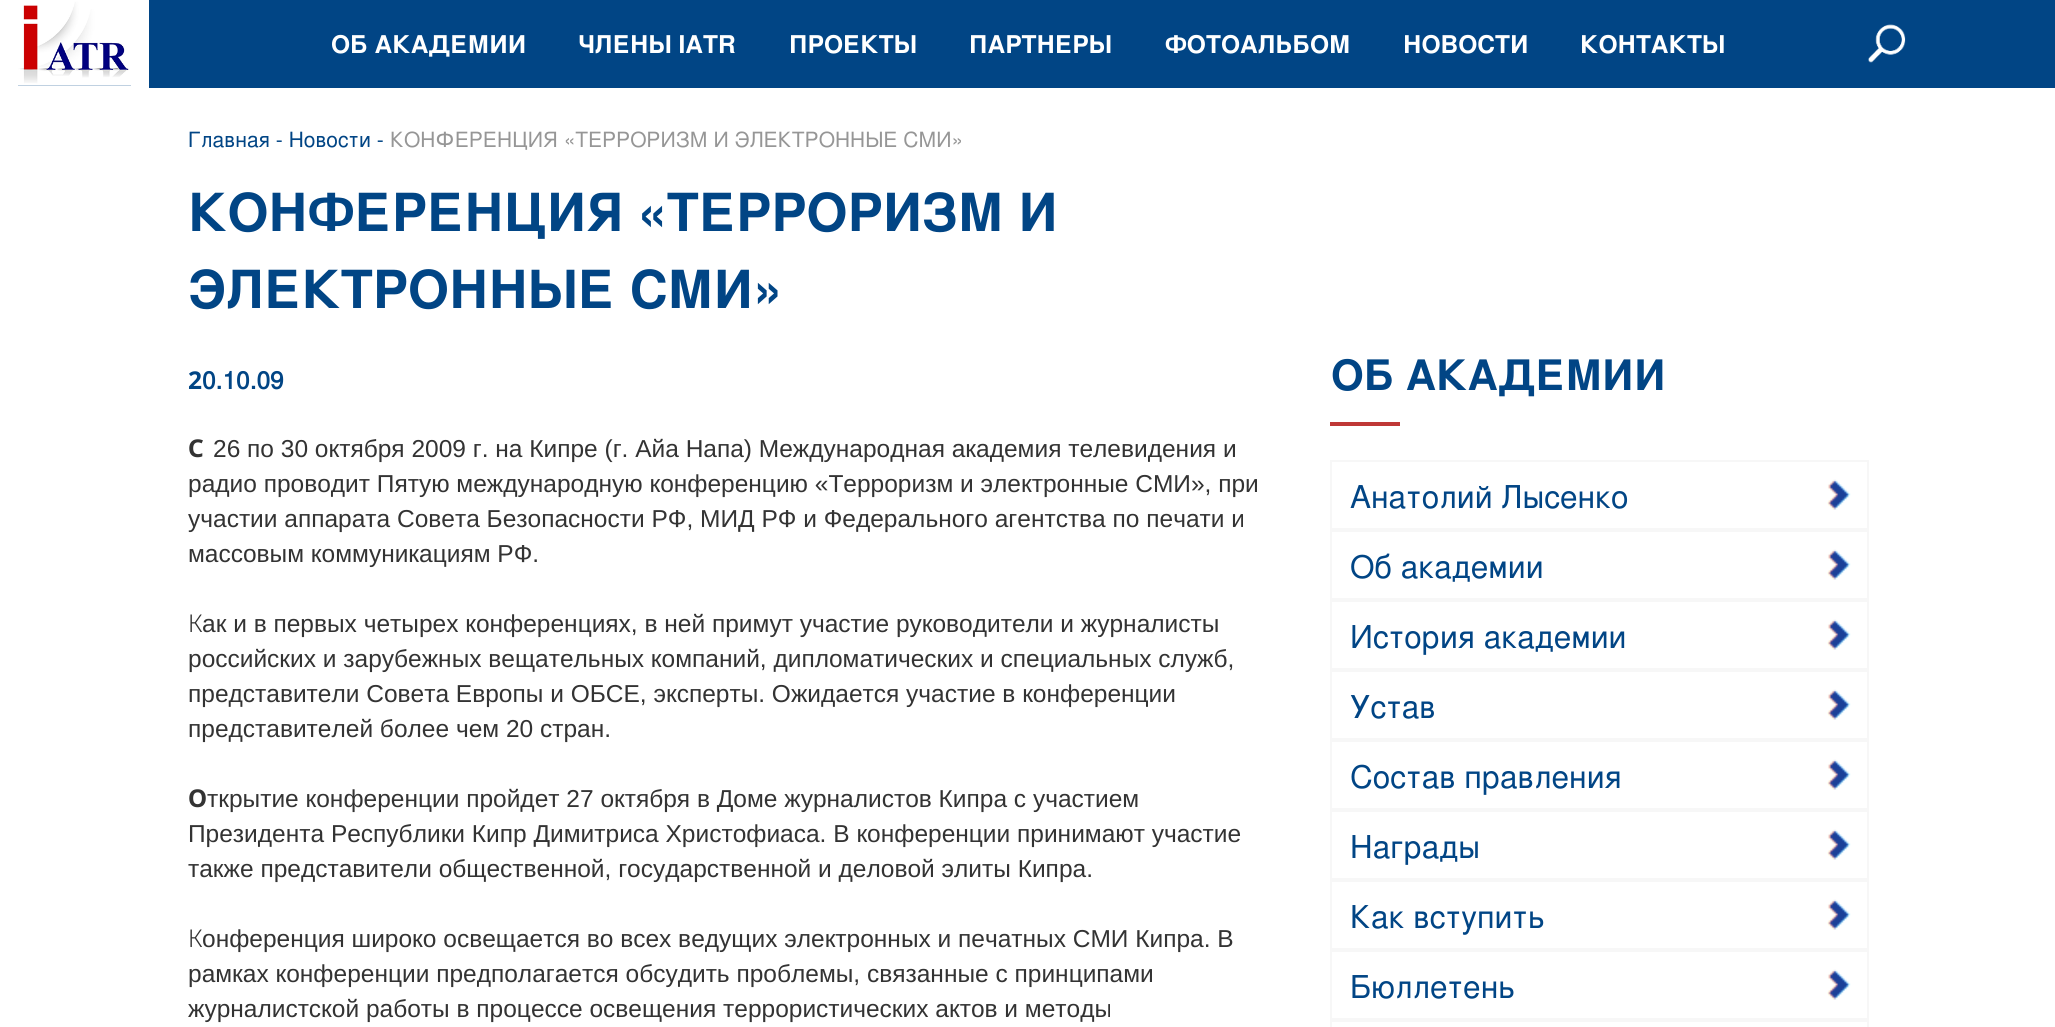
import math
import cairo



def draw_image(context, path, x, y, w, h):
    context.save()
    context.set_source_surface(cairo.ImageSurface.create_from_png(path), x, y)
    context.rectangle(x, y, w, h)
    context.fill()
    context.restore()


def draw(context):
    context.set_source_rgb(1, 1, 1)
    context.paint()
    context.set_source_rgb(1 / 255, 69 / 255, 133 / 255)
    context.rectangle(18, 0, 2037, 88)
    context.fill()
    context.set_source_rgb(1, 1, 1)
    context.rectangle(131, 0, 18, 86)
    context.fill()
    context.rectangle(18, 86, 131, 2)
    context.fill()
    draw_image(context, "images/1.png", 18, 0, 113, 86)
    draw_image(context, "images/2.png", 1868, 24, 38, 39)
    context.set_source_rgb(191 / 255, 56 / 255, 54 / 255)
    context.rectangle(1330, 422, 70, 4)
    context.fill()
    draw_image(context, "images/3.png", 1827, 479, 24, 31)
    context.rectangle(1331, 461, 537, 68)
    context.set_source_rgb(247 / 255, 247 / 255, 247 / 255)
    context.stroke()
    draw_image(context, "images/3.png", 1827, 549, 24, 31)
    context.rectangle(1331, 531, 537, 68)
    context.stroke()
    draw_image(context, "images/3.png", 1827, 619, 24, 31)
    context.rectangle(1331, 601, 537, 68)
    context.stroke()
    draw_image(context, "images/3.png", 1827, 689, 24, 31)
    context.rectangle(1331, 671, 537, 68)
    context.stroke()
    draw_image(context, "images/3.png", 1827, 759, 24, 31)
    context.rectangle(1331, 741, 537, 68)
    context.stroke()
    draw_image(context, "images/3.png", 1827, 829, 24, 31)
    context.rectangle(1331, 811, 537, 68)
    context.stroke()
    draw_image(context, "images/3.png", 1827, 899, 24, 31)
    context.rectangle(1331, 881, 537, 68)
    context.stroke()
    draw_image(context, "images/3.png", 1827, 969, 24, 31)
    context.rectangle(1331, 951, 537, 68)
    context.stroke()
    context.rectangle(1331, 1021, 537, 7)
    context.stroke()
    context.select_font_face("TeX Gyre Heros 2", cairo.FontSlant.NORMAL, cairo.FontWeight.BOLD)
    context.set_font_size(24.5)
    context.set_source_rgb(1, 1, 1)
    context.move_to(331, 53)
    context.show_text("ОБ АКАДЕМИИ")
    context.move_to(578, 53)
    context.show_text("ЧЛЕНЫ IATR")
    context.move_to(789, 53)
    context.show_text("ПРОЕКТЫ")
    context.move_to(969, 53)
    context.show_text("ПАРТНЕРЫ")
    context.move_to(1165, 53)
    context.show_text("ФОТОАЛЬБОМ")
    context.move_to(1403, 53)
    context.show_text("НОВОСТИ")
    context.move_to(1580, 53)
    context.show_text("КОНТАКТЫ")
    context.select_font_face("TeX Gyre Heros")
    context.set_font_size(21)
    context.set_source_rgb(1 / 255, 69 / 255, 133 / 255)
    context.move_to(188, 147)
    context.show_text("Главная - Новости -")
    context.set_source_rgb(150 / 255, 150 / 255, 150 / 255)
    context.move_to(390, 147)
    context.show_text("КОНФЕРЕНЦИЯ «ТЕРРОРИЗМ И ЭЛЕКТРОННЫЕ СМИ»")
    context.select_font_face("TeX Gyre Heros 2", cairo.FontSlant.NORMAL, cairo.FontWeight.BOLD)
    context.set_font_size(52.5)
    context.set_source_rgb(1 / 255, 69 / 255, 133 / 255)
    context.move_to(188, 231)
    context.show_text("КОНФЕРЕНЦИЯ «ТЕРРОРИЗМ И")
    context.move_to(188, 308)
    context.show_text("ЭЛЕКТРОННЫЕ СМИ»")
    context.select_font_face("Noto Sans", cairo.FontSlant.NORMAL, cairo.FontWeight.BOLD)
    context.set_font_size(24.5)
    context.move_to(188, 389)
    context.show_text("2")
    context.select_font_face("TeX Gyre Heros", cairo.FontSlant.NORMAL, cairo.FontWeight.BOLD)
    context.move_to(202, 389)
    context.show_text("0.10.09")
    context.select_font_face("Noto Sans", cairo.FontSlant.NORMAL, cairo.FontWeight.BOLD)
    context.set_source_rgb(51 / 255, 51 / 255, 51 / 255)
    context.move_to(188, 457)
    context.show_text("С")
    context.select_font_face("Liberation Sans")
    context.move_to(213, 457)
    context.show_text("26 по 30 октября 2009 г. на Кипре (г. Айа Напа) Международная академия телевидения и")
    context.move_to(188, 492)
    context.show_text("радио проводит Пятую международную конференцию «Терроризм и электронные СМИ», при")
    context.move_to(188, 527)
    context.show_text("участии аппарата Совета Безопасности РФ, МИД РФ и Федерального агентства по печати и")
    context.move_to(188, 562)
    context.show_text("массовым коммуникациям РФ.")
    context.select_font_face("Noto Sans Light")
    context.move_to(188, 632)
    context.show_text("К")
    context.select_font_face("Liberation Sans")
    context.move_to(202, 632)
    context.show_text("ак и в первых четырех конференциях, в ней примут участие руководители и журналисты")
    context.move_to(188, 667)
    context.show_text("российских и зарубежных вещательных компаний, дипломатических и специальных служб,")
    context.move_to(188, 702)
    context.show_text("представители Совета Европы и ОБСЕ, эксперты. Ожидается участие в конференции")
    context.move_to(188, 737)
    context.show_text("представителей более чем 20 стран.")
    context.select_font_face("Noto Sans", cairo.FontSlant.NORMAL, cairo.FontWeight.BOLD)
    context.move_to(188, 807)
    context.show_text("О")
    context.select_font_face("Liberation Sans")
    context.move_to(207, 807)
    context.show_text("ткрытие конференции пройдет 27 октября в Доме журналистов Кипра с участием")
    context.move_to(188, 842)
    context.show_text("Президента Республики Кипр Димитриса Христофиаса. В конференции принимают участие")
    context.move_to(188, 877)
    context.show_text("также представители общественной, государственной и деловой элиты Кипра.")
    context.select_font_face("Noto Sans Light")
    context.move_to(188, 947)
    context.show_text("К")
    context.select_font_face("Liberation Sans")
    context.move_to(202, 947)
    context.show_text("онференция широко освещается во всех ведущих электронных и печатных СМИ Кипра. В")
    context.move_to(188, 982)
    context.show_text("рамках конференции предполагается обсудить проблемы, связанные с принципами")
    context.move_to(188, 1017)
    context.show_text("журналистской работы в процессе освещения террористических актов и методы")
    context.select_font_face("TeX Gyre Heros 2", cairo.FontSlant.NORMAL, cairo.FontWeight.BOLD)
    context.set_font_size(42)
    context.set_source_rgb(1 / 255, 69 / 255, 133 / 255)
    context.move_to(1331, 390)
    context.show_text("ОБ АКАДЕМИИ")
    context.select_font_face("TeX Gyre Heros")
    context.set_font_size(31.5)
    context.move_to(1350, 508)
    context.show_text("Анатолий Лысенко")
    context.move_to(1350, 578)
    context.show_text("Об академии")
    context.move_to(1350, 648)
    context.show_text("История академии")
    context.move_to(1350, 718)
    context.show_text("Устав")
    context.move_to(1350, 788)
    context.show_text("Состав правления")
    context.move_to(1350, 858)
    context.show_text("Награды")
    context.move_to(1350, 928)
    context.show_text("Как вступить")
    context.move_to(1350, 998)
    context.show_text("Бюллетень")


surface = cairo.ImageSurface(cairo.Format.RGB24, 2055, 1027)
context = cairo.Context(surface)
options = cairo.FontOptions()
options.set_hint_metrics(cairo.HintMetrics.OFF)
options.set_hint_style(cairo.HintStyle.NONE)
context.set_font_options(options)
context.set_miter_limit(4)
draw(context)
surface.write_to_png("out.png")
